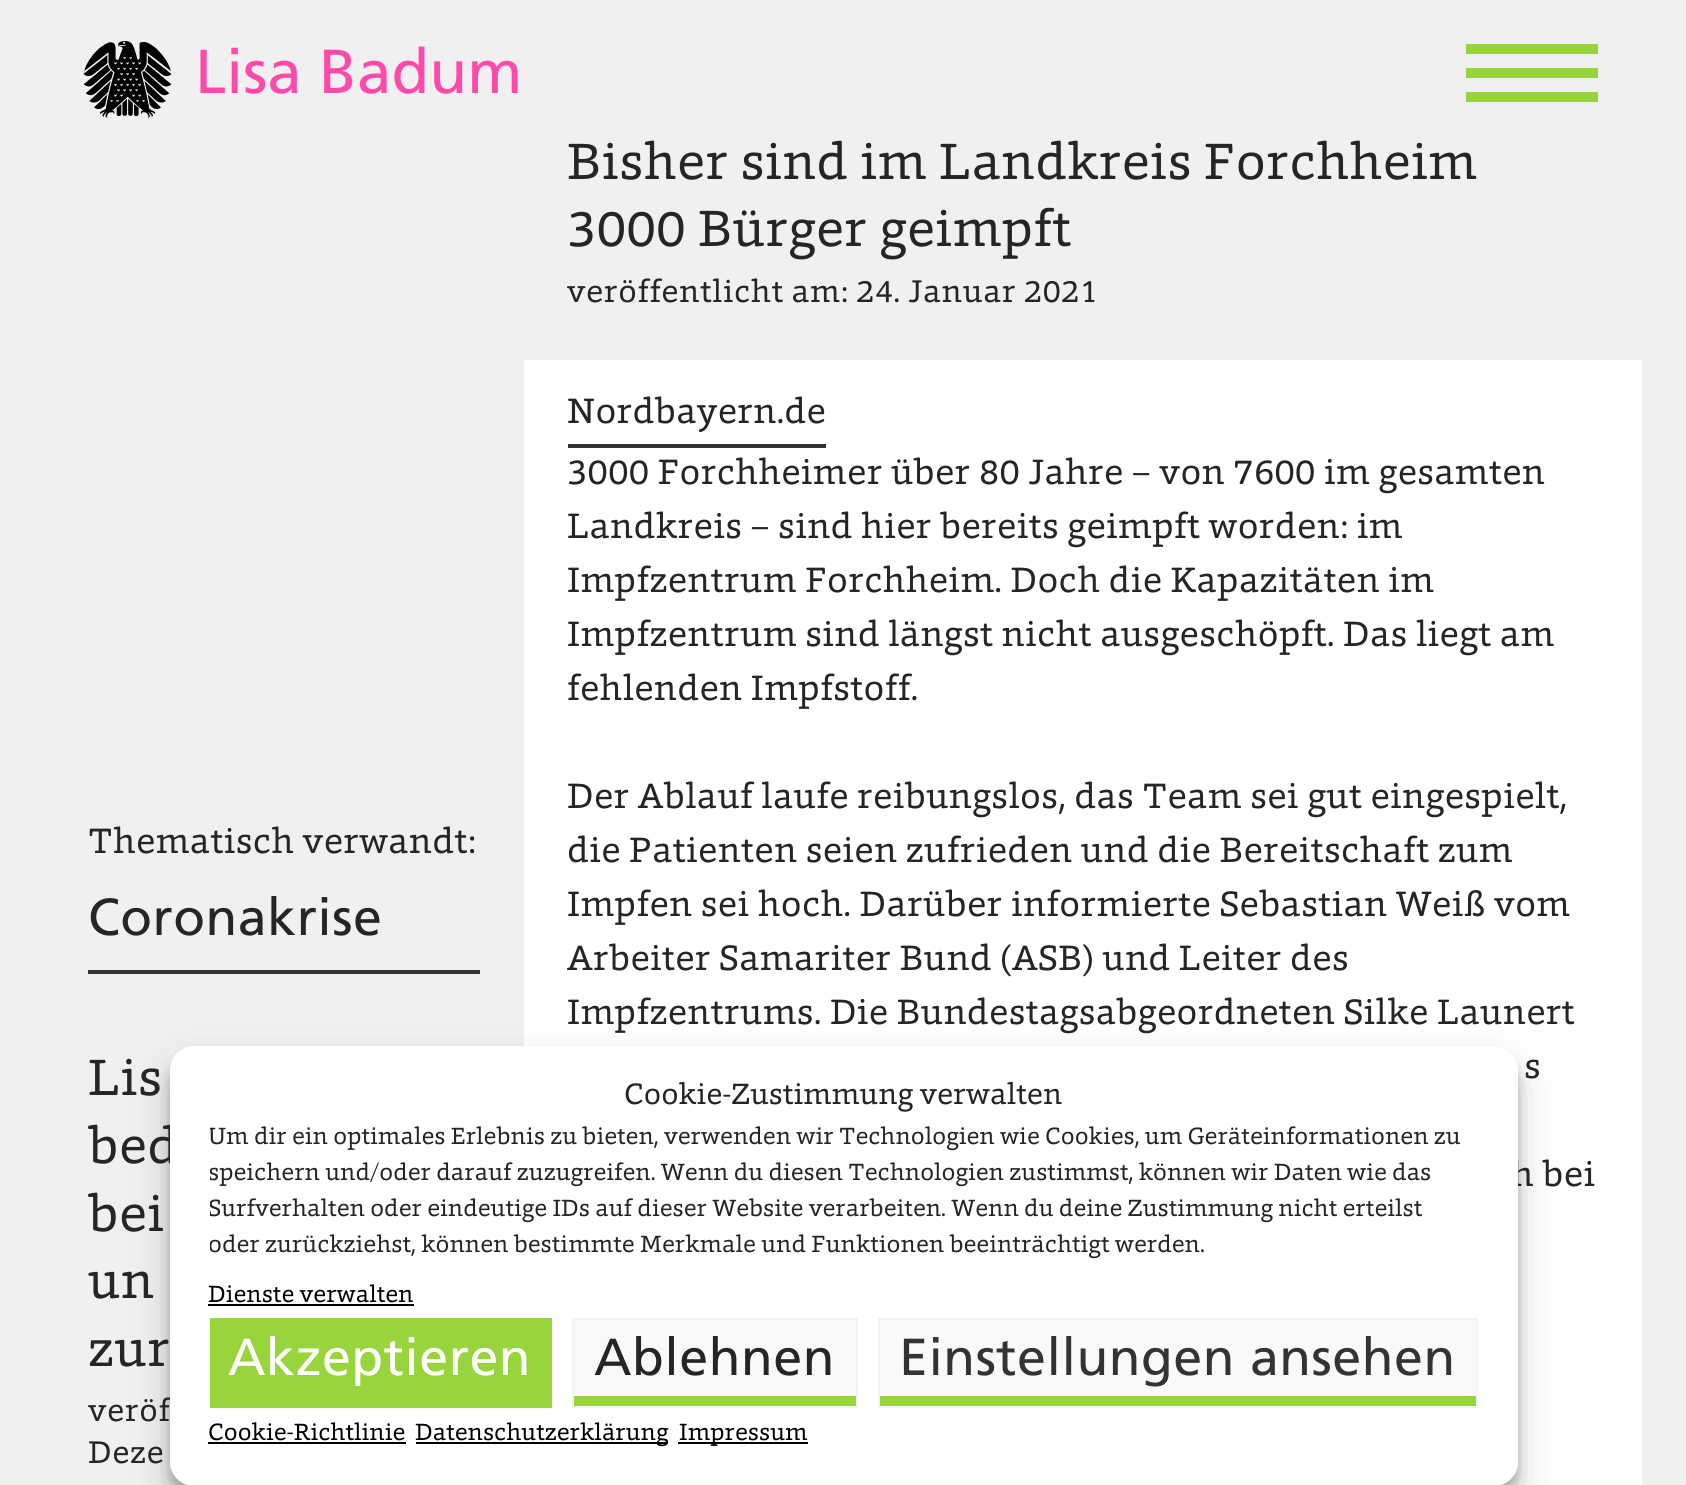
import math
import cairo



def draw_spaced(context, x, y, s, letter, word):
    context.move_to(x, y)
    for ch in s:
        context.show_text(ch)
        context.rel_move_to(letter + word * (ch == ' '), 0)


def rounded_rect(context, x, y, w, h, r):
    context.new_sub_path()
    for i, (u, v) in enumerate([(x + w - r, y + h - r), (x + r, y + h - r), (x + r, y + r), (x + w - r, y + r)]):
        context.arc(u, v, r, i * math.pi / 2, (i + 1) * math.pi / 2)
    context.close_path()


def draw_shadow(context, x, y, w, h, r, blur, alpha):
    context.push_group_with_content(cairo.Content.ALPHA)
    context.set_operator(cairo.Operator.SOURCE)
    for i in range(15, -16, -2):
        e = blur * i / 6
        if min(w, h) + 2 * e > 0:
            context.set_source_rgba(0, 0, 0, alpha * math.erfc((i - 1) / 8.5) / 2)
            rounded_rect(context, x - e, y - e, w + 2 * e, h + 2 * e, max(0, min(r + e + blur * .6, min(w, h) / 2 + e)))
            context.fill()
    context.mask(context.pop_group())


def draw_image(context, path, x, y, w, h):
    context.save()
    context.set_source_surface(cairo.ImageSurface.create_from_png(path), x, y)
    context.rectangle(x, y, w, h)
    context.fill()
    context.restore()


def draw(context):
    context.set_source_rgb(240 / 255, 240 / 255, 240 / 255)
    context.paint()
    draw_image(context, "images/1.png", 83, 41, 89, 77)
    context.set_source_rgb(152 / 255, 213 / 255, 61 / 255)
    context.rectangle(1466, 44, 132, 10)
    context.fill()
    context.rectangle(1466, 68, 132, 10)
    context.fill()
    context.rectangle(1466, 92, 132, 10)
    context.fill()
    context.set_source_rgb(51 / 255, 51 / 255, 51 / 255)
    context.rectangle(88, 970, 392, 4)
    context.fill()
    context.set_source_rgb(1, 1, 1)
    context.rectangle(524, 360, 1118, 1125)
    context.fill()
    context.set_source_rgb(51 / 255, 51 / 255, 51 / 255)
    context.rectangle(568, 444, 258, 4)
    context.fill()
    context.set_source_rgb(0, 0, 0)
    draw_shadow(context, 170, 1058, 1348, 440, 24, 6, 0.23)
    draw_shadow(context, 170, 1066, 1348, 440, 24, 20, 0.19)
    context.select_font_face("Frutiger")
    context.set_font_size(62)
    context.set_source_rgb(1, 74 / 255, 169 / 255)
    context.move_to(195, 93)
    context.show_text("Lisa Badum")
    context.select_font_face("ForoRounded")
    context.set_font_size(52)
    context.set_source_rgb(37 / 255, 37 / 255, 37 / 255)
    draw_spaced(context, 567, 179, "Bisher sind im Landkreis Forchheim", 0.5, 0)
    context.set_source_rgb(240 / 255, 240 / 255, 240 / 255)
    context.rectangle(1422, 143, 2, 3)
    context.fill()
    context.set_source_rgb(37 / 255, 37 / 255, 37 / 255)
    draw_spaced(context, 567, 246, "3000 Bürger geimpft", 0.5, 0)
    context.set_font_size(32)
    draw_spaced(context, 567, 302, "veröffentlicht am: 24. Januar 2021", 0.65, 0)
    context.set_font_size(36)
    draw_spaced(context, 88, 853, "Thematisch verwandt:", 0.35, 0)
    context.select_font_face("Frutiger")
    context.set_font_size(52)
    draw_spaced(context, 88, 935, "Coronakrise", 0.5, 0)
    context.select_font_face("ForoRounded")
    draw_spaced(context, 88, 1095, "Lis", 0.5, 0)
    draw_spaced(context, 88, 1163, "bed", 0.5, 0)
    draw_spaced(context, 88, 1231, "bei", 0.5, 0)
    draw_spaced(context, 88, 1298, "un", 0.5, 0)
    draw_spaced(context, 88, 1366, "zur", 0.5, 0)
    context.set_font_size(32)
    draw_spaced(context, 88, 1421, "veröf", 0.65, 0)
    draw_spaced(context, 88, 1463, "Deze", 0.65, 0)
    context.set_font_size(36)
    draw_spaced(context, 567, 423, "Nordbayern.de", 0.35, 0)
    draw_spaced(context, 567, 484, "3000 Forchheimer über 80 Jahre – von 7600 im gesamten", 0.35, 0)
    draw_spaced(context, 567, 538, "Landkreis – sind hier bereits geimpft worden: im", 0.35, 0)
    draw_spaced(context, 567, 592, "Impfzentrum Forchheim. Doch die Kapazitäten im", 0.35, 0)
    draw_spaced(context, 567, 646, "Impfzentrum sind längst nicht ausgeschöpft. Das liegt am", 0.35, 0)
    draw_spaced(context, 567, 700, "fehlenden Impfstoff.", 0.35, 0)
    draw_spaced(context, 567, 808, "Der Ablauf laufe reibungslos, das Team sei gut eingespielt,", 0.35, 0)
    draw_spaced(context, 567, 862, "die Patienten seien zufrieden und die Bereitschaft zum", 0.35, 0)
    draw_spaced(context, 567, 916, "Impfen sei hoch. Darüber informierte Sebastian Weiß vom", 0.35, 0)
    draw_spaced(context, 567, 970, "Arbeiter Samariter Bund (ASB) und Leiter des", 0.35, 0)
    draw_spaced(context, 567, 1024, "Impfzentrums. Die Bundestagsabgeordneten Silke Launert", 0.35, 0)
    draw_spaced(context, 1524, 1078, "s", 0.35, 0)
    draw_spaced(context, 1511, 1186, "h bei", 0.35, 0)
    context.set_source_rgb(1, 1, 1)
    rounded_rect(context, 170, 1046, 1348, 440, 24)
    context.fill()
    context.set_font_size(30)
    context.set_source_rgb(37 / 255, 37 / 255, 37 / 255)
    context.move_to(624, 1104)
    context.show_text("Cookie-Zustimmung verwalten")
    context.save()
    context.rectangle(210, 1120, 1268, 154)
    context.clip()
    context.set_font_size(24)
    context.move_to(208, 1144)
    context.show_text("Um dir ein optimales Erlebnis zu bieten, verwenden wir Technologien wie Cookies, um Geräteinformationen zu")
    context.move_to(208, 1180)
    context.show_text("speichern und/oder darauf zuzugreifen. Wenn du diesen Technologien zustimmst, können wir Daten wie das")
    context.move_to(208, 1216)
    context.show_text("Surfverhalten oder eindeutige IDs auf dieser Website verarbeiten. Wenn du deine Zustimmung nicht erteilst")
    context.move_to(208, 1252)
    context.show_text("oder zurückziehst, können bestimmte Merkmale und Funktionen beeinträchtigt werden.")
    context.restore()
    context.set_font_size(24)
    context.set_source_rgb(0, 0, 0)
    context.move_to(208, 1302)
    context.show_text("Dienste verwalten")
    context.rectangle(208, 1304, 206, 2)
    context.fill()
    context.set_source_rgb(152 / 255, 213 / 255, 61 / 255)
    context.rectangle(210, 1318, 342, 90)
    context.fill()
    context.select_font_face("Frutiger")
    context.set_font_size(52)
    context.set_source_rgb(1, 1, 1)
    draw_spaced(context, 228, 1375, "Akzeptieren", 0.5, 0)
    context.set_source_rgb(249 / 255, 249 / 255, 249 / 255)
    context.rectangle(574, 1320, 282, 76)
    context.fill()
    context.set_source_rgb(152 / 255, 213 / 255, 61 / 255)
    context.rectangle(574, 1396, 282, 10)
    context.fill()
    context.rectangle(573, 1319, 284, 88)
    context.set_source_rgb(242 / 255, 242 / 255, 242 / 255)
    context.stroke()
    context.set_source_rgb(37 / 255, 37 / 255, 37 / 255)
    draw_spaced(context, 594, 1375, "Ablehnen", 0.5, 0)
    context.set_source_rgb(249 / 255, 249 / 255, 249 / 255)
    context.rectangle(880, 1320, 596, 76)
    context.fill()
    context.set_source_rgb(152 / 255, 213 / 255, 61 / 255)
    context.rectangle(880, 1396, 596, 10)
    context.fill()
    context.rectangle(879, 1319, 598, 88)
    context.set_source_rgb(242 / 255, 242 / 255, 242 / 255)
    context.stroke()
    context.set_source_rgb(51 / 255, 51 / 255, 51 / 255)
    draw_spaced(context, 899, 1375, "Einstellungen ansehen", 0.5, 0)
    context.select_font_face("ForoRounded")
    context.set_font_size(24)
    context.set_source_rgb(0, 0, 0)
    context.move_to(208, 1440)
    context.show_text("Cookie-Richtlinie")
    context.rectangle(208, 1442, 198, 2)
    context.fill()
    context.rectangle(416, 1442, 252, 2)
    context.fill()
    context.move_to(415, 1440)
    context.show_text("Datenschutzerklärung")
    context.rectangle(678, 1442, 130, 2)
    context.fill()
    context.move_to(679, 1440)
    context.show_text("Impressum")


surface = cairo.ImageSurface(cairo.Format.RGB24, 1686, 1485)
context = cairo.Context(surface)
options = cairo.FontOptions()
options.set_hint_metrics(cairo.HintMetrics.OFF)
options.set_hint_style(cairo.HintStyle.NONE)
context.set_font_options(options)
context.set_miter_limit(4)
draw(context)
surface.write_to_png("out.png")
